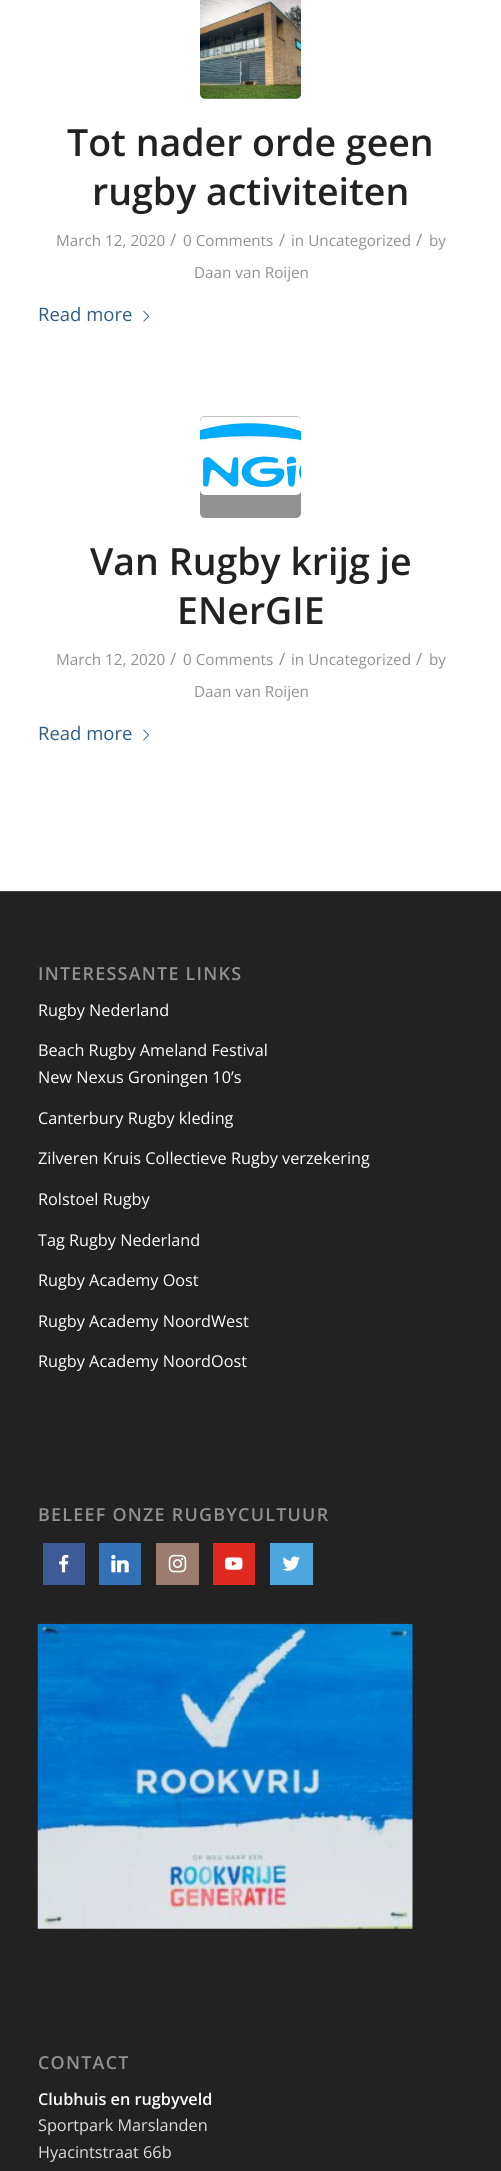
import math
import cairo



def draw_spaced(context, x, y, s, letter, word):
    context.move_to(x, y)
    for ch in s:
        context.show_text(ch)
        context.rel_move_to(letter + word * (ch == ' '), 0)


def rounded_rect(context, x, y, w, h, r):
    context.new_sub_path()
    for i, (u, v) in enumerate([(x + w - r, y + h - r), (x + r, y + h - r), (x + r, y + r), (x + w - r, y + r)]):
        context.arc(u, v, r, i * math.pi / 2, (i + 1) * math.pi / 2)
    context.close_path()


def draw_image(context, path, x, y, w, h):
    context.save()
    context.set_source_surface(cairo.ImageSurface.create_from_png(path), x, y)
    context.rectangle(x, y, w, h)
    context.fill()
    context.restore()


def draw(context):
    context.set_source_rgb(1, 1, 1)
    context.paint()
    context.set_source_rgb(145 / 255, 145 / 255, 145 / 255)
    rounded_rect(context, 200, -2, 101, 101, 5)
    context.fill()
    draw_image(context, "images/1.png", 200, 0, 101, 99)
    draw_image(context, "images/2.png", 143, 310, 7, 12)
    rounded_rect(context, 200, 416, 101, 102, 5)
    context.fill()
    draw_image(context, "images/3.png", 200, 416, 101, 79)
    draw_image(context, "images/4.png", 143, 729, 6, 12)
    context.set_source_rgb(34 / 255, 34 / 255, 34 / 255)
    context.rectangle(0, 892, 501, 1279)
    context.fill()
    context.set_source_rgb(68 / 255, 68 / 255, 68 / 255)
    context.rectangle(0, 891, 501, 1)
    context.fill()
    context.set_source_rgb(62 / 255, 91 / 255, 152 / 255)
    context.rectangle(43, 1543, 42, 42)
    context.fill()
    draw_image(context, "images/5.png", 59, 1554, 10, 19)
    context.set_source_rgb(51 / 255, 113 / 255, 183 / 255)
    context.rectangle(99, 1543, 42, 42)
    context.fill()
    draw_image(context, "images/6.png", 111, 1554, 18, 19)
    context.set_source_rgb(156 / 255, 124 / 255, 110 / 255)
    context.rectangle(156, 1543, 43, 42)
    context.fill()
    draw_image(context, "images/7.png", 168, 1554, 19, 19)
    context.set_source_rgb(224 / 255, 42 / 255, 32 / 255)
    context.rectangle(213, 1543, 42, 42)
    context.fill()
    draw_image(context, "images/8.png", 225, 1557, 18, 13)
    context.set_source_rgb(77 / 255, 167 / 255, 222 / 255)
    context.rectangle(270, 1543, 43, 42)
    context.fill()
    draw_image(context, "images/9.png", 282, 1556, 18, 15)
    draw_image(context, "images/10.png", 37, 1623, 376, 306)
    context.select_font_face("Open Sans SemiBold")
    context.set_font_size(37.5)
    context.set_source_rgb(34 / 255, 34 / 255, 34 / 255)
    context.move_to(67, 156)
    context.show_text("Tot nader orde geen")
    context.move_to(92, 205)
    context.show_text("rugby activiteiten")
    context.select_font_face("Open Sans")
    context.set_font_size(15.25)
    context.set_source_rgb(145 / 255, 145 / 255, 145 / 255)
    context.move_to(56, 246)
    context.show_text("March 12, 2020")
    context.set_font_size(17)
    context.move_to(170, 246)
    context.show_text("/")
    context.set_font_size(15.25)
    context.move_to(183, 246)
    context.show_text("0 Comments")
    context.set_font_size(17)
    context.move_to(279, 246)
    context.show_text("/")
    context.set_font_size(15.25)
    context.move_to(291, 246)
    context.show_text("in Uncategorized")
    context.set_font_size(17)
    context.move_to(416, 246)
    context.show_text("/")
    context.set_font_size(15.25)
    context.move_to(429, 246)
    context.show_text("by")
    context.move_to(194, 278)
    context.show_text("Daan van Roijen")
    context.set_font_size(18.5)
    context.set_source_rgb(45 / 255, 92 / 255, 136 / 255)
    context.move_to(38, 321)
    context.show_text("Read more")
    context.select_font_face("Open Sans SemiBold")
    context.set_font_size(37.5)
    context.set_source_rgb(34 / 255, 34 / 255, 34 / 255)
    context.move_to(90, 575)
    context.show_text("Van Rugby krijg je")
    context.move_to(177, 624)
    context.show_text("ENerGIE")
    context.select_font_face("Open Sans")
    context.set_font_size(15.25)
    context.set_source_rgb(145 / 255, 145 / 255, 145 / 255)
    context.move_to(56, 665)
    context.show_text("March 12, 2020")
    context.set_font_size(17)
    context.move_to(170, 665)
    context.show_text("/")
    context.set_font_size(15.25)
    context.move_to(183, 665)
    context.show_text("0 Comments")
    context.set_font_size(17)
    context.move_to(279, 665)
    context.show_text("/")
    context.set_font_size(15.25)
    context.move_to(291, 665)
    context.show_text("in Uncategorized")
    context.set_font_size(17)
    context.move_to(416, 665)
    context.show_text("/")
    context.set_font_size(15.25)
    context.move_to(429, 665)
    context.show_text("by")
    context.move_to(194, 697)
    context.show_text("Daan van Roijen")
    context.set_font_size(18.5)
    context.set_source_rgb(45 / 255, 92 / 255, 136 / 255)
    context.move_to(38, 740)
    context.show_text("Read more")
    context.select_font_face("Open Sans SemiBold")
    context.set_font_size(17.9)
    context.set_source_rgb(145 / 255, 145 / 255, 145 / 255)
    draw_spaced(context, 38, 980, "INTERESSANTE LINKS", 1.25, 0)
    context.select_font_face("Open Sans")
    context.set_font_size(16.25)
    context.set_source_rgb(1, 1, 1)
    context.move_to(38, 1016)
    context.show_text("Rugby Nederland")
    context.move_to(38, 1056)
    context.show_text("Beach Rugby Ameland Festival")
    context.move_to(38, 1083)
    context.show_text("New Nexus Groningen 10’s")
    context.move_to(38, 1124)
    context.show_text("Canterbury Rugby kleding")
    context.move_to(38, 1164)
    context.show_text("Zilveren Kruis Collectieve Rugby verzekering")
    context.move_to(38, 1205)
    context.show_text("Rolstoel Rugby")
    context.move_to(38, 1246)
    context.show_text("Tag Rugby Nederland")
    context.move_to(38, 1286)
    context.show_text("Rugby Academy Oost")
    context.move_to(38, 1327)
    context.show_text("Rugby Academy NoordWest")
    context.move_to(38, 1367)
    context.show_text("Rugby Academy NoordOost")
    context.select_font_face("Open Sans SemiBold")
    context.set_font_size(17.9)
    context.set_source_rgb(145 / 255, 145 / 255, 145 / 255)
    draw_spaced(context, 38, 1521, "BELEEF ONZE RUGBYCULTUUR", 1.25, 0)
    draw_spaced(context, 38, 2069, "CONTACT", 1.25, 0)
    context.set_font_size(16.25)
    context.set_source_rgb(1, 1, 1)
    context.move_to(38, 2105)
    context.show_text("Clubhuis en rugbyveld")
    context.select_font_face("Open Sans")
    context.set_source_rgb(221 / 255, 221 / 255, 221 / 255)
    context.move_to(38, 2131)
    context.show_text("Sportpark Marslanden")
    context.move_to(38, 2158)
    context.show_text("Hyacintstraat 66b")


surface = cairo.ImageSurface(cairo.Format.RGB24, 501, 2171)
context = cairo.Context(surface)
options = cairo.FontOptions()
options.set_hint_metrics(cairo.HintMetrics.OFF)
options.set_hint_style(cairo.HintStyle.NONE)
context.set_font_options(options)
context.set_miter_limit(4)
draw(context)
surface.write_to_png("out.png")
